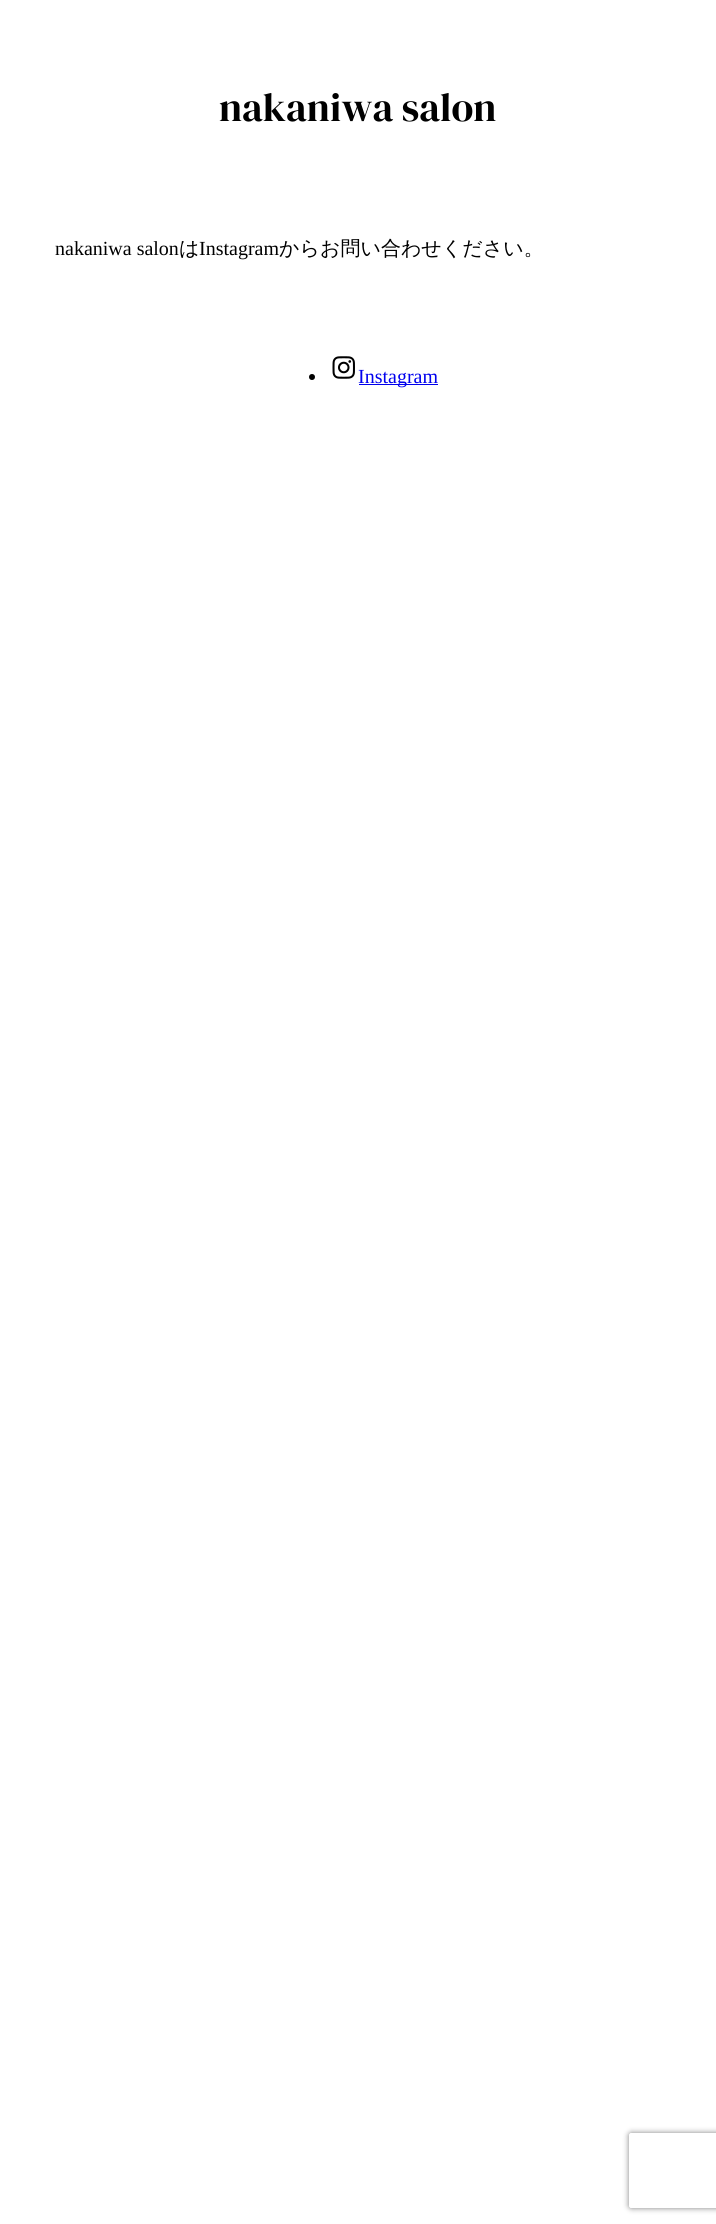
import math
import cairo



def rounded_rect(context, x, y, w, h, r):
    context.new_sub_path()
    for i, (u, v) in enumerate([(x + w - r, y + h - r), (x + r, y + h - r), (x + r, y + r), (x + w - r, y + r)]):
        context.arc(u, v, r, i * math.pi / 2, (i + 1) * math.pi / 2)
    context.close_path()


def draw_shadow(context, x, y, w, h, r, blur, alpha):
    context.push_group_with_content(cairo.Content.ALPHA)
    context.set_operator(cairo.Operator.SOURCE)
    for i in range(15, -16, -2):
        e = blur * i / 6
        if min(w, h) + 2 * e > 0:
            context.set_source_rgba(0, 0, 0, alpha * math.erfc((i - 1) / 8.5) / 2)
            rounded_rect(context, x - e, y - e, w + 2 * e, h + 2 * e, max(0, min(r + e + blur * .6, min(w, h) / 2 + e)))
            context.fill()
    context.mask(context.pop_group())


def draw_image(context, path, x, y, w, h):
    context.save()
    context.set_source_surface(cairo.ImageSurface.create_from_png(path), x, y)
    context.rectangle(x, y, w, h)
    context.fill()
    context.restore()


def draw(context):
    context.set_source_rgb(1, 1, 1)
    context.paint()
    context.set_source_rgb(0, 0, 0)
    context.arc(312, 377, 3, 0, 2 * math.pi)
    context.fill()
    draw_image(context, "images/1.png", 332, 356, 23, 23)
    context.set_source_rgb(0, 0, 238 / 255)
    context.rectangle(359, 384, 79, 1)
    context.fill()
    context.save()
    context.set_fill_rule(cairo.FillRule.EVEN_ODD)
    context.new_path()
    context.move_to(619, 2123)
    context.line_to(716, 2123)
    context.line_to(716, 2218)
    context.line_to(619, 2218)
    context.close_path()
    context.move_to(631.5, 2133)
    context.line_to(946.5, 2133)
    context.curve_to(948, 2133, 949, 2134, 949, 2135.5)
    context.line_to(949, 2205.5)
    context.curve_to(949, 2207, 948, 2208, 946.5, 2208)
    context.line_to(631.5, 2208)
    context.curve_to(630, 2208, 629, 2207, 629, 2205.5)
    context.line_to(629, 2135.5)
    context.curve_to(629, 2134, 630, 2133, 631.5, 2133)
    context.close_path()
    context.clip()
    context.set_source_rgb(128 / 255, 128 / 255, 128 / 255)
    draw_shadow(context, 629, 2133, 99, 75, 2.5, 3, 1)
    context.restore()
    context.select_font_face("DM Serif Display")
    context.set_font_size(40)
    context.set_source_rgb(0, 0, 0)
    context.move_to(219, 121)
    context.show_text("nakaniwa salon")
    context.select_font_face("Liberation Serif")
    context.set_font_size(20)
    context.move_to(55, 255)
    context.show_text("nakaniwa salon")
    context.select_font_face("WenQuanYi Zen Hei Medium")
    context.move_to(179, 255)
    context.show_text("は")
    context.select_font_face("Liberation Serif")
    context.move_to(199, 255)
    context.show_text("Instagram")
    context.select_font_face("WenQuanYi Zen Hei Medium")
    context.move_to(279, 255)
    context.show_text("からお問い合わせください。")
    context.select_font_face("Liberation Serif")
    context.set_source_rgb(0, 0, 238 / 255)
    context.move_to(358, 383)
    context.show_text("Instagram")


surface = cairo.ImageSurface(cairo.Format.RGB24, 716, 2224)
context = cairo.Context(surface)
options = cairo.FontOptions()
options.set_hint_metrics(cairo.HintMetrics.OFF)
options.set_hint_style(cairo.HintStyle.NONE)
context.set_font_options(options)
context.set_miter_limit(4)
draw(context)
surface.write_to_png("out.png")
